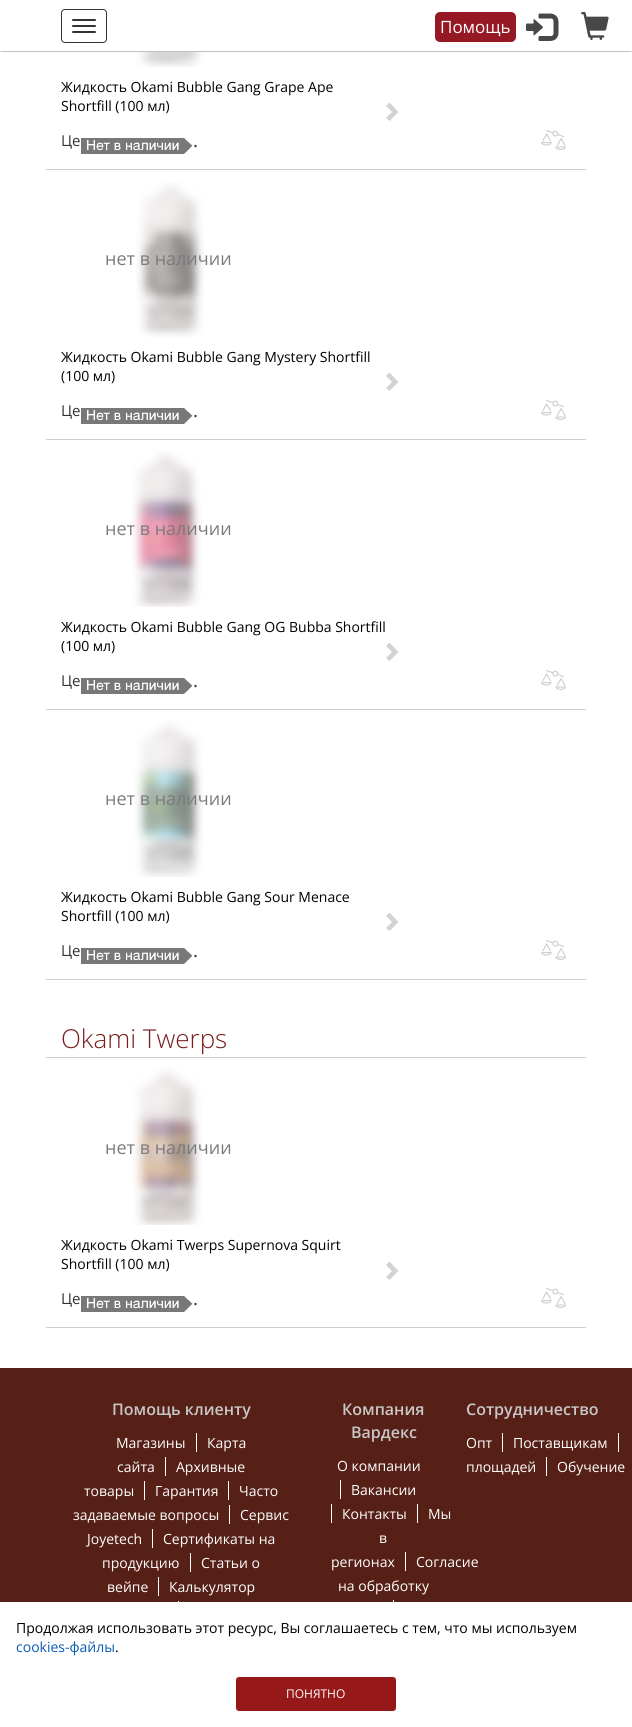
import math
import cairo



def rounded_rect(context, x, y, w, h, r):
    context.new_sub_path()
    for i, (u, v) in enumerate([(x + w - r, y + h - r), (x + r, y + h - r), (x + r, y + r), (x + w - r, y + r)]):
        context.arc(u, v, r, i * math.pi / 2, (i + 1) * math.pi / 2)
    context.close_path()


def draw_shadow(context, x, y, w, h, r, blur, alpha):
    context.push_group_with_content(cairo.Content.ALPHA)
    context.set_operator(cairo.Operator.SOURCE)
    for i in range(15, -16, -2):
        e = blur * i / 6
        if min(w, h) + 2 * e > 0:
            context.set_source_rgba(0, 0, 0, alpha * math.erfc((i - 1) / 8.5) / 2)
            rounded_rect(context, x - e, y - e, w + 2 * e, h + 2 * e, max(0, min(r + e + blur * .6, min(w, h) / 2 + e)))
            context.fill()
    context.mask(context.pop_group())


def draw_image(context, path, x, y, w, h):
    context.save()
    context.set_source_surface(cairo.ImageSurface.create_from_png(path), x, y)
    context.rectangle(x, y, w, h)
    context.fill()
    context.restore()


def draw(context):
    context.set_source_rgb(1, 1, 1)
    context.paint()
    context.set_source_rgb(193 / 255, 193 / 255, 195 / 255)
    context.new_path()
    context.move_to(632, 52)
    context.line_to(0, 52)
    context.line_to(1, 51)
    context.line_to(631, 51)
    context.close_path()
    context.fill()
    rounded_rect(context, 61.5, 9.5, 45, 33, 3.5)
    context.set_source_rgb(51 / 255, 51 / 255, 51 / 255)
    context.set_line_width(1)
    context.stroke()
    rounded_rect(context, 72, 19, 24, 2, 1)
    context.fill()
    rounded_rect(context, 72, 25, 24, 2, 1)
    context.fill()
    rounded_rect(context, 72, 31, 24, 2, 1)
    context.fill()
    context.set_source_rgb(151 / 255, 24 / 255, 37 / 255)
    rounded_rect(context, 435, 12, 81, 30, 5)
    context.fill()
    draw_image(context, "images/1.png", 526, 13, 33, 28)
    draw_image(context, "images/2.png", 581, 12, 28, 28)
    context.set_source_rgb(206 / 255, 208 / 255, 208 / 255)
    context.rectangle(46, 169, 540, 1)
    context.fill()
    draw_image(context, "images/3.png", 135, 52, 70, 15)
    context.set_source_rgb(211 / 255, 211 / 255, 211 / 255)
    context.new_path()
    context.move_to(398.5, 112)
    context.line_to(389.5, 121)
    context.line_to(386, 118)
    context.line_to(392, 112)
    context.line_to(386, 106)
    context.line_to(389.5, 102.5)
    context.close_path()
    context.fill()
    draw_image(context, "images/4.png", 541, 130, 25, 20)
    draw_image(context, "images/5.png", 81, 138, 112, 16)
    context.set_source_rgb(206 / 255, 208 / 255, 208 / 255)
    context.rectangle(46, 439, 540, 1)
    context.fill()
    draw_image(context, "images/6.png", 136, 181, 69, 156)
    context.set_source_rgb(211 / 255, 211 / 255, 211 / 255)
    context.new_path()
    context.move_to(398.5, 382)
    context.line_to(389.5, 391)
    context.line_to(386, 388)
    context.line_to(392, 382)
    context.line_to(386, 376)
    context.line_to(389.5, 372.5)
    context.close_path()
    context.fill()
    draw_image(context, "images/4.png", 541, 400, 25, 20)
    draw_image(context, "images/5.png", 81, 408, 112, 16)
    context.set_source_rgb(206 / 255, 208 / 255, 208 / 255)
    context.rectangle(46, 709, 540, 1)
    context.fill()
    draw_image(context, "images/7.png", 131, 450, 71, 157)
    context.set_source_rgb(211 / 255, 211 / 255, 211 / 255)
    context.new_path()
    context.move_to(398.5, 652)
    context.line_to(389.5, 661)
    context.line_to(386, 658)
    context.line_to(392, 652)
    context.line_to(386, 646)
    context.line_to(389.5, 642.5)
    context.close_path()
    context.fill()
    draw_image(context, "images/4.png", 541, 670, 25, 20)
    draw_image(context, "images/5.png", 81, 678, 112, 16)
    context.set_source_rgb(206 / 255, 208 / 255, 208 / 255)
    context.rectangle(46, 979, 540, 1)
    context.fill()
    draw_image(context, "images/8.png", 134, 720, 70, 157)
    context.set_source_rgb(211 / 255, 211 / 255, 211 / 255)
    context.new_path()
    context.move_to(398.5, 922)
    context.line_to(389.5, 931)
    context.line_to(386, 928)
    context.line_to(392, 922)
    context.line_to(386, 916)
    context.line_to(389.5, 912.5)
    context.close_path()
    context.fill()
    draw_image(context, "images/4.png", 541, 940, 25, 20)
    draw_image(context, "images/5.png", 81, 948, 112, 16)
    context.set_source_rgb(206 / 255, 208 / 255, 208 / 255)
    context.rectangle(46, 1057, 540, 1)
    context.fill()
    context.rectangle(46, 1327, 540, 1)
    context.fill()
    draw_image(context, "images/9.png", 132, 1068, 71, 157)
    context.set_source_rgb(211 / 255, 211 / 255, 211 / 255)
    context.new_path()
    context.move_to(398.5, 1271)
    context.line_to(389.5, 1280)
    context.line_to(386, 1277)
    context.line_to(392, 1271)
    context.line_to(386, 1265)
    context.line_to(389.5, 1261.5)
    context.close_path()
    context.fill()
    draw_image(context, "images/4.png", 541, 1288, 25, 20)
    draw_image(context, "images/5.png", 81, 1296, 112, 16)
    context.set_source_rgb(86 / 255, 32 / 255, 22 / 255)
    context.rectangle(0, 1368, 632, 234)
    context.fill()
    context.set_source_rgb(1, 1, 1)
    context.rectangle(196, 1433, 1, 19)
    context.fill()
    context.rectangle(165, 1457, 1, 19)
    context.fill()
    context.rectangle(144, 1481, 1, 19)
    context.fill()
    context.rectangle(228, 1481, 1, 19)
    context.fill()
    context.rectangle(229, 1505, 1, 19)
    context.fill()
    context.rectangle(152, 1529, 1, 19)
    context.fill()
    context.rectangle(190, 1553, 1, 19)
    context.fill()
    context.rectangle(158, 1577, 1, 19)
    context.fill()
    context.rectangle(178, 1601, 1, 1)
    context.fill()
    context.rectangle(340, 1480, 1, 19)
    context.fill()
    context.rectangle(331, 1504, 1, 19)
    context.fill()
    context.rectangle(417, 1504, 1, 19)
    context.fill()
    context.rectangle(405, 1552, 1, 19)
    context.fill()
    context.rectangle(393, 1600, 1, 2)
    context.fill()
    context.rectangle(502, 1433, 1, 19)
    context.fill()
    context.rectangle(618, 1433, 1, 19)
    context.fill()
    context.rectangle(546, 1457, 1, 19)
    context.fill()
    context.set_source_rgb(38 / 255, 38 / 255, 38 / 255)
    draw_shadow(context, 0, 1614, 632, 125, 0, 12, 0.16)
    context.set_source_rgb(1, 1, 1)
    context.rectangle(0, 1602, 632, 125)
    context.fill()
    context.set_source_rgb(150 / 255, 24 / 255, 25 / 255)
    rounded_rect(context, 236, 1677, 160, 34, 3)
    context.fill()
    context.select_font_face("Open Sans")
    context.set_font_size(17)
    context.set_source_rgb(1, 1, 1)
    context.move_to(440, 33)
    context.show_text("Помощь")
    context.set_font_size(14)
    context.set_source_rgb(0, 0, 0)
    context.move_to(61, 92)
    context.show_text("Жидкость Okami Bubble Gang Grape Ape")
    context.move_to(61, 111)
    context.show_text("Shortfill (100 мл)")
    context.set_font_size(15)
    context.set_source_rgb(51 / 255, 51 / 255, 51 / 255)
    context.move_to(61, 146)
    context.show_text("Це")
    context.set_font_size(19)
    context.move_to(193, 147)
    context.show_text(".")
    context.set_font_size(18)
    context.set_source_rgb(123 / 255, 123 / 255, 123 / 255)
    context.move_to(105, 265)
    context.show_text("нет в наличии")
    context.set_font_size(14)
    context.set_source_rgb(0, 0, 0)
    context.move_to(61, 362)
    context.show_text("Жидкость Okami Bubble Gang Mystery Shortfill")
    context.move_to(61, 381)
    context.show_text("(100 мл)")
    context.set_font_size(15)
    context.set_source_rgb(51 / 255, 51 / 255, 51 / 255)
    context.move_to(61, 416)
    context.show_text("Це")
    context.set_font_size(19)
    context.move_to(193, 417)
    context.show_text(".")
    context.set_font_size(18)
    context.set_source_rgb(123 / 255, 123 / 255, 123 / 255)
    context.move_to(105, 535)
    context.show_text("нет в наличии")
    context.set_font_size(14)
    context.set_source_rgb(0, 0, 0)
    context.move_to(61, 632)
    context.show_text("Жидкость Okami Bubble Gang OG Bubba Shortfill")
    context.move_to(61, 651)
    context.show_text("(100 мл)")
    context.set_font_size(15)
    context.set_source_rgb(51 / 255, 51 / 255, 51 / 255)
    context.move_to(61, 686)
    context.show_text("Це")
    context.set_font_size(19)
    context.move_to(193, 687)
    context.show_text(".")
    context.set_font_size(18)
    context.set_source_rgb(123 / 255, 123 / 255, 123 / 255)
    context.move_to(105, 805)
    context.show_text("нет в наличии")
    context.set_font_size(14)
    context.set_source_rgb(0, 0, 0)
    context.move_to(61, 902)
    context.show_text("Жидкость Okami Bubble Gang Sour Menace")
    context.move_to(61, 921)
    context.show_text("Shortfill (100 мл)")
    context.set_font_size(15)
    context.set_source_rgb(51 / 255, 51 / 255, 51 / 255)
    context.move_to(61, 956)
    context.show_text("Це")
    context.set_font_size(19)
    context.move_to(193, 957)
    context.show_text(".")
    context.select_font_face("Open Sans Light")
    context.set_font_size(26)
    context.set_source_rgb(122 / 255, 31 / 255, 31 / 255)
    context.move_to(61, 1048)
    context.show_text("Okami Twerps")
    context.select_font_face("Open Sans")
    context.set_font_size(18)
    context.set_source_rgb(123 / 255, 123 / 255, 123 / 255)
    context.move_to(105, 1154)
    context.show_text("нет в наличии")
    context.set_font_size(14)
    context.set_source_rgb(0, 0, 0)
    context.move_to(61, 1250)
    context.show_text("Жидкость Okami Twerps Supernova Squirt")
    context.move_to(61, 1269)
    context.show_text("Shortfill (100 мл)")
    context.set_font_size(15)
    context.set_source_rgb(51 / 255, 51 / 255, 51 / 255)
    context.move_to(61, 1304)
    context.show_text("Це")
    context.set_font_size(19)
    context.move_to(193, 1305)
    context.show_text(".")
    context.select_font_face("Open Sans SemiBold")
    context.set_font_size(16)
    context.set_source_rgb(199 / 255, 199 / 255, 199 / 255)
    context.move_to(112, 1415)
    context.show_text("Помощь клиенту")
    context.select_font_face("Open Sans")
    context.set_font_size(14)
    context.set_source_rgb(1, 1, 1)
    context.move_to(116, 1448)
    context.show_text("Магазины")
    context.move_to(207, 1448)
    context.show_text("Карта")
    context.move_to(117, 1472)
    context.show_text("сайта")
    context.move_to(176, 1472)
    context.show_text("Архивные")
    context.move_to(84, 1496)
    context.show_text("товары")
    context.move_to(155, 1496)
    context.show_text("Гарантия")
    context.move_to(239, 1496)
    context.show_text("Часто")
    context.move_to(73, 1520)
    context.show_text("задаваемые вопросы")
    context.move_to(240, 1520)
    context.show_text("Сервис")
    context.move_to(87, 1544)
    context.show_text("Joyetech")
    context.move_to(163, 1544)
    context.show_text("Сертификаты на")
    context.move_to(102, 1568)
    context.show_text("продукцию")
    context.move_to(201, 1568)
    context.show_text("Статьи о")
    context.move_to(107, 1592)
    context.show_text("вейпе")
    context.move_to(169, 1592)
    context.show_text("Калькулятор")
    context.select_font_face("Open Sans SemiBold")
    context.set_font_size(16)
    context.set_source_rgb(199 / 255, 199 / 255, 199 / 255)
    context.move_to(342, 1415)
    context.show_text("Компания")
    context.move_to(351, 1438)
    context.show_text("Вардекс")
    context.select_font_face("Open Sans")
    context.set_font_size(14)
    context.set_source_rgb(1, 1, 1)
    context.move_to(337, 1471)
    context.show_text("О компании")
    context.move_to(351, 1495)
    context.show_text("Вакансии")
    context.move_to(342, 1519)
    context.show_text("Контакты")
    context.move_to(428, 1519)
    context.show_text("Мы")
    context.move_to(379, 1543)
    context.show_text("в")
    context.move_to(331, 1567)
    context.show_text("регионах")
    context.move_to(416, 1567)
    context.show_text("Согласие")
    context.move_to(338, 1591)
    context.show_text("на обработку")
    context.select_font_face("Open Sans SemiBold")
    context.set_font_size(16)
    context.set_source_rgb(199 / 255, 199 / 255, 199 / 255)
    context.move_to(466, 1415)
    context.show_text("Сотрудничество")
    context.select_font_face("Open Sans")
    context.set_font_size(14)
    context.set_source_rgb(1, 1, 1)
    context.move_to(466, 1448)
    context.show_text("Опт")
    context.move_to(513, 1448)
    context.show_text("Поставщикам")
    context.move_to(466, 1472)
    context.show_text("площадей")
    context.move_to(557, 1472)
    context.show_text("Обучение")
    context.set_source_rgb(0, 0, 0)
    context.move_to(16, 1633)
    context.show_text("Продолжая использовать этот ресурс, Вы соглашаетесь с тем, что мы используем")
    context.set_source_rgb(9 / 255, 90 / 255, 181 / 255)
    context.move_to(16, 1652)
    context.show_text("cookies-файлы")
    context.set_source_rgb(0, 0, 0)
    context.move_to(115, 1652)
    context.show_text(".")
    context.set_font_size(12)
    context.set_source_rgb(1, 1, 1)
    context.move_to(286, 1698)
    context.show_text("ПОНЯТНО")


surface = cairo.ImageSurface(cairo.Format.RGB24, 632, 1727)
context = cairo.Context(surface)
options = cairo.FontOptions()
options.set_hint_metrics(cairo.HintMetrics.OFF)
options.set_hint_style(cairo.HintStyle.NONE)
context.set_font_options(options)
context.set_miter_limit(4)
draw(context)
surface.write_to_png("out.png")
